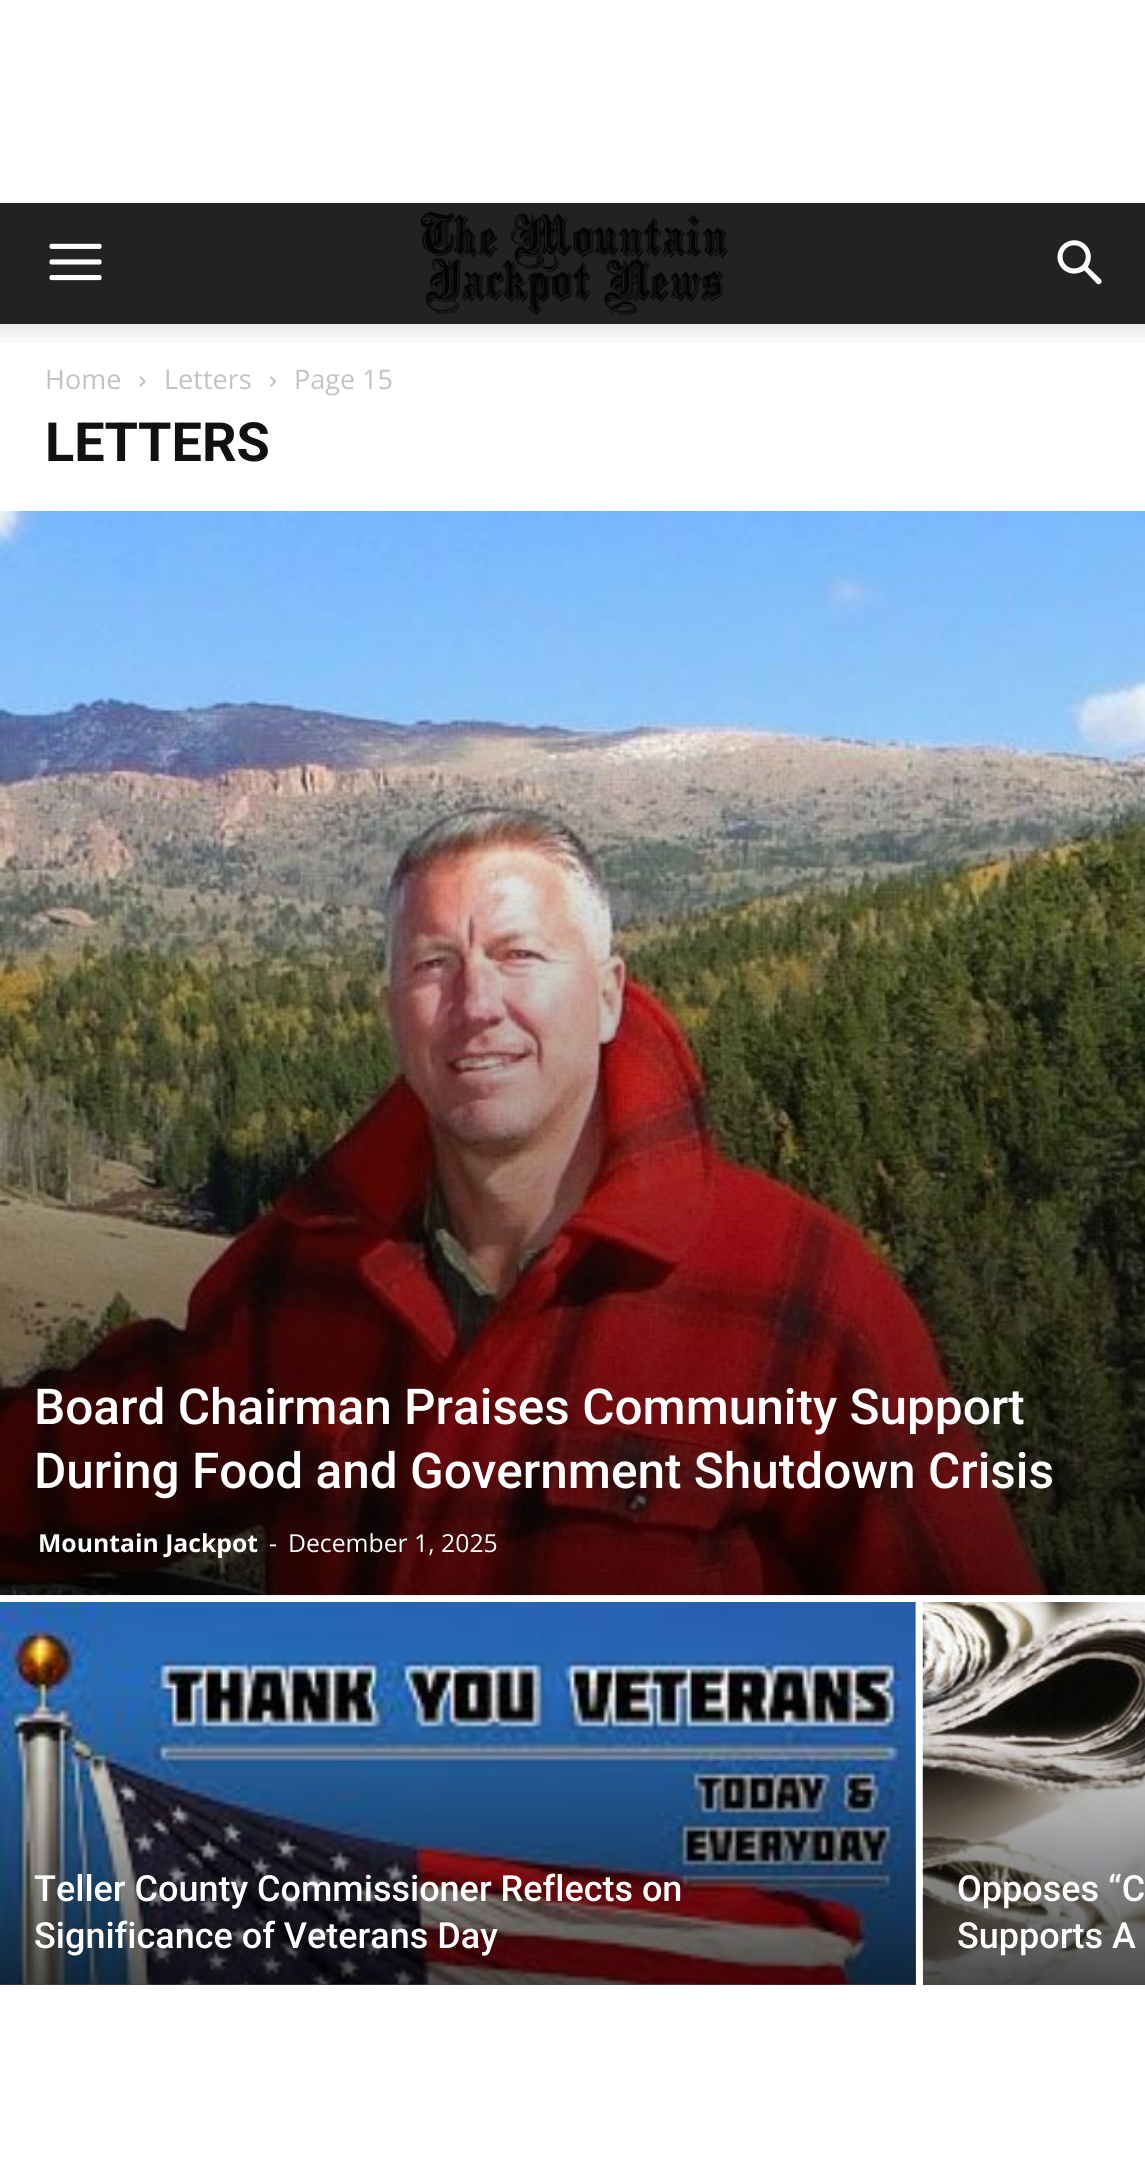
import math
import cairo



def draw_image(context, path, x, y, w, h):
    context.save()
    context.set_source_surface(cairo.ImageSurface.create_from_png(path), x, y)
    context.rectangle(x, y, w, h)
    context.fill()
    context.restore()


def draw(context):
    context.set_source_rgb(1, 1, 1)
    context.paint()
    context.set_source_rgb(34 / 255, 34 / 255, 34 / 255)
    context.rectangle(0, 203, 1145, 121)
    context.fill()
    draw_image(context, "images/1.png", 49, 243, 53, 38)
    draw_image(context, "images/2.png", 420, 211, 308, 105)
    draw_image(context, "images/3.png", 1057, 240, 45, 45)
    draw_image(context, "images/4.png", 0, 324, 1145, 19)
    draw_image(context, "images/5.png", 139, 376, 7, 11)
    draw_image(context, "images/6.png", 270, 376, 6, 11)
    draw_image(context, "images/7.png", 0, 510, 1145, 1086)
    context.set_source_rgb(229 / 255, 229 / 255, 229 / 255)
    context.rectangle(0, 1602, 916, 383)
    context.fill()
    draw_image(context, "images/8.png", 0, 1602, 916, 383)
    gradient = cairo.LinearGradient(458, 1487, 458, 1985)
    gradient.add_color_stop_rgba(0.4, 0, 0, 0, 0)
    gradient.add_color_stop_rgba(1, 0, 0, 0, 0.7)
    context.set_source(gradient)
    context.rectangle(0, 1695, 916, 290)
    context.fill()
    context.set_source_rgb(229 / 255, 229 / 255, 229 / 255)
    context.rectangle(923, 1984, 222, 1)
    context.fill()
    draw_image(context, "images/9.png", 922, 1602, 223, 383)
    gradient = cairo.LinearGradient(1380, 1487, 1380, 1985)
    gradient.add_color_stop_rgba(0.4, 0, 0, 0, 0)
    gradient.add_color_stop_rgba(1, 0, 0, 0, 0.7)
    context.set_source(gradient)
    context.rectangle(923, 1695, 222, 290)
    context.fill()
    context.select_font_face("Open Sans")
    context.set_font_size(27)
    context.set_source_rgb(195 / 255, 195 / 255, 195 / 255)
    context.move_to(45, 389)
    context.show_text("Home")
    context.move_to(164, 389)
    context.show_text("Letters")
    context.move_to(294, 389)
    context.show_text("Page 15")
    context.select_font_face("Roboto", cairo.FontSlant.NORMAL, cairo.FontWeight.BOLD)
    context.set_font_size(54)
    context.set_source_rgb(17 / 255, 17 / 255, 17 / 255)
    context.move_to(45, 461)
    context.show_text("LETTERS")
    context.select_font_face("Roboto Medium")
    context.set_font_size(49.5)
    context.set_source_rgb(1, 1, 1)
    context.move_to(34, 1424)
    context.show_text("Board Chairman Praises Community Support")
    context.move_to(34, 1488)
    context.show_text("During Food and Government Shutdown Crisis")
    context.select_font_face("Open Sans", cairo.FontSlant.NORMAL, cairo.FontWeight.BOLD)
    context.set_font_size(24.75)
    context.move_to(38, 1552)
    context.show_text("Mountain Jackpot")
    context.select_font_face("Open Sans")
    context.move_to(269, 1552)
    context.show_text("-")
    context.move_to(288, 1552)
    context.show_text("December 1, 2025")
    context.select_font_face("Roboto Medium")
    context.set_font_size(36)
    context.move_to(34, 1901)
    context.show_text("Teller County Commissioner Reflects on")
    context.move_to(34, 1948)
    context.show_text("Significance of Veterans Day")
    context.move_to(957, 1901)
    context.show_text("Opposes “C")
    context.move_to(957, 1948)
    context.show_text("Supports A")


surface = cairo.ImageSurface(cairo.Format.RGB24, 1145, 2182)
context = cairo.Context(surface)
options = cairo.FontOptions()
options.set_hint_metrics(cairo.HintMetrics.OFF)
options.set_hint_style(cairo.HintStyle.NONE)
context.set_font_options(options)
context.set_miter_limit(4)
draw(context)
surface.write_to_png("out.png")
